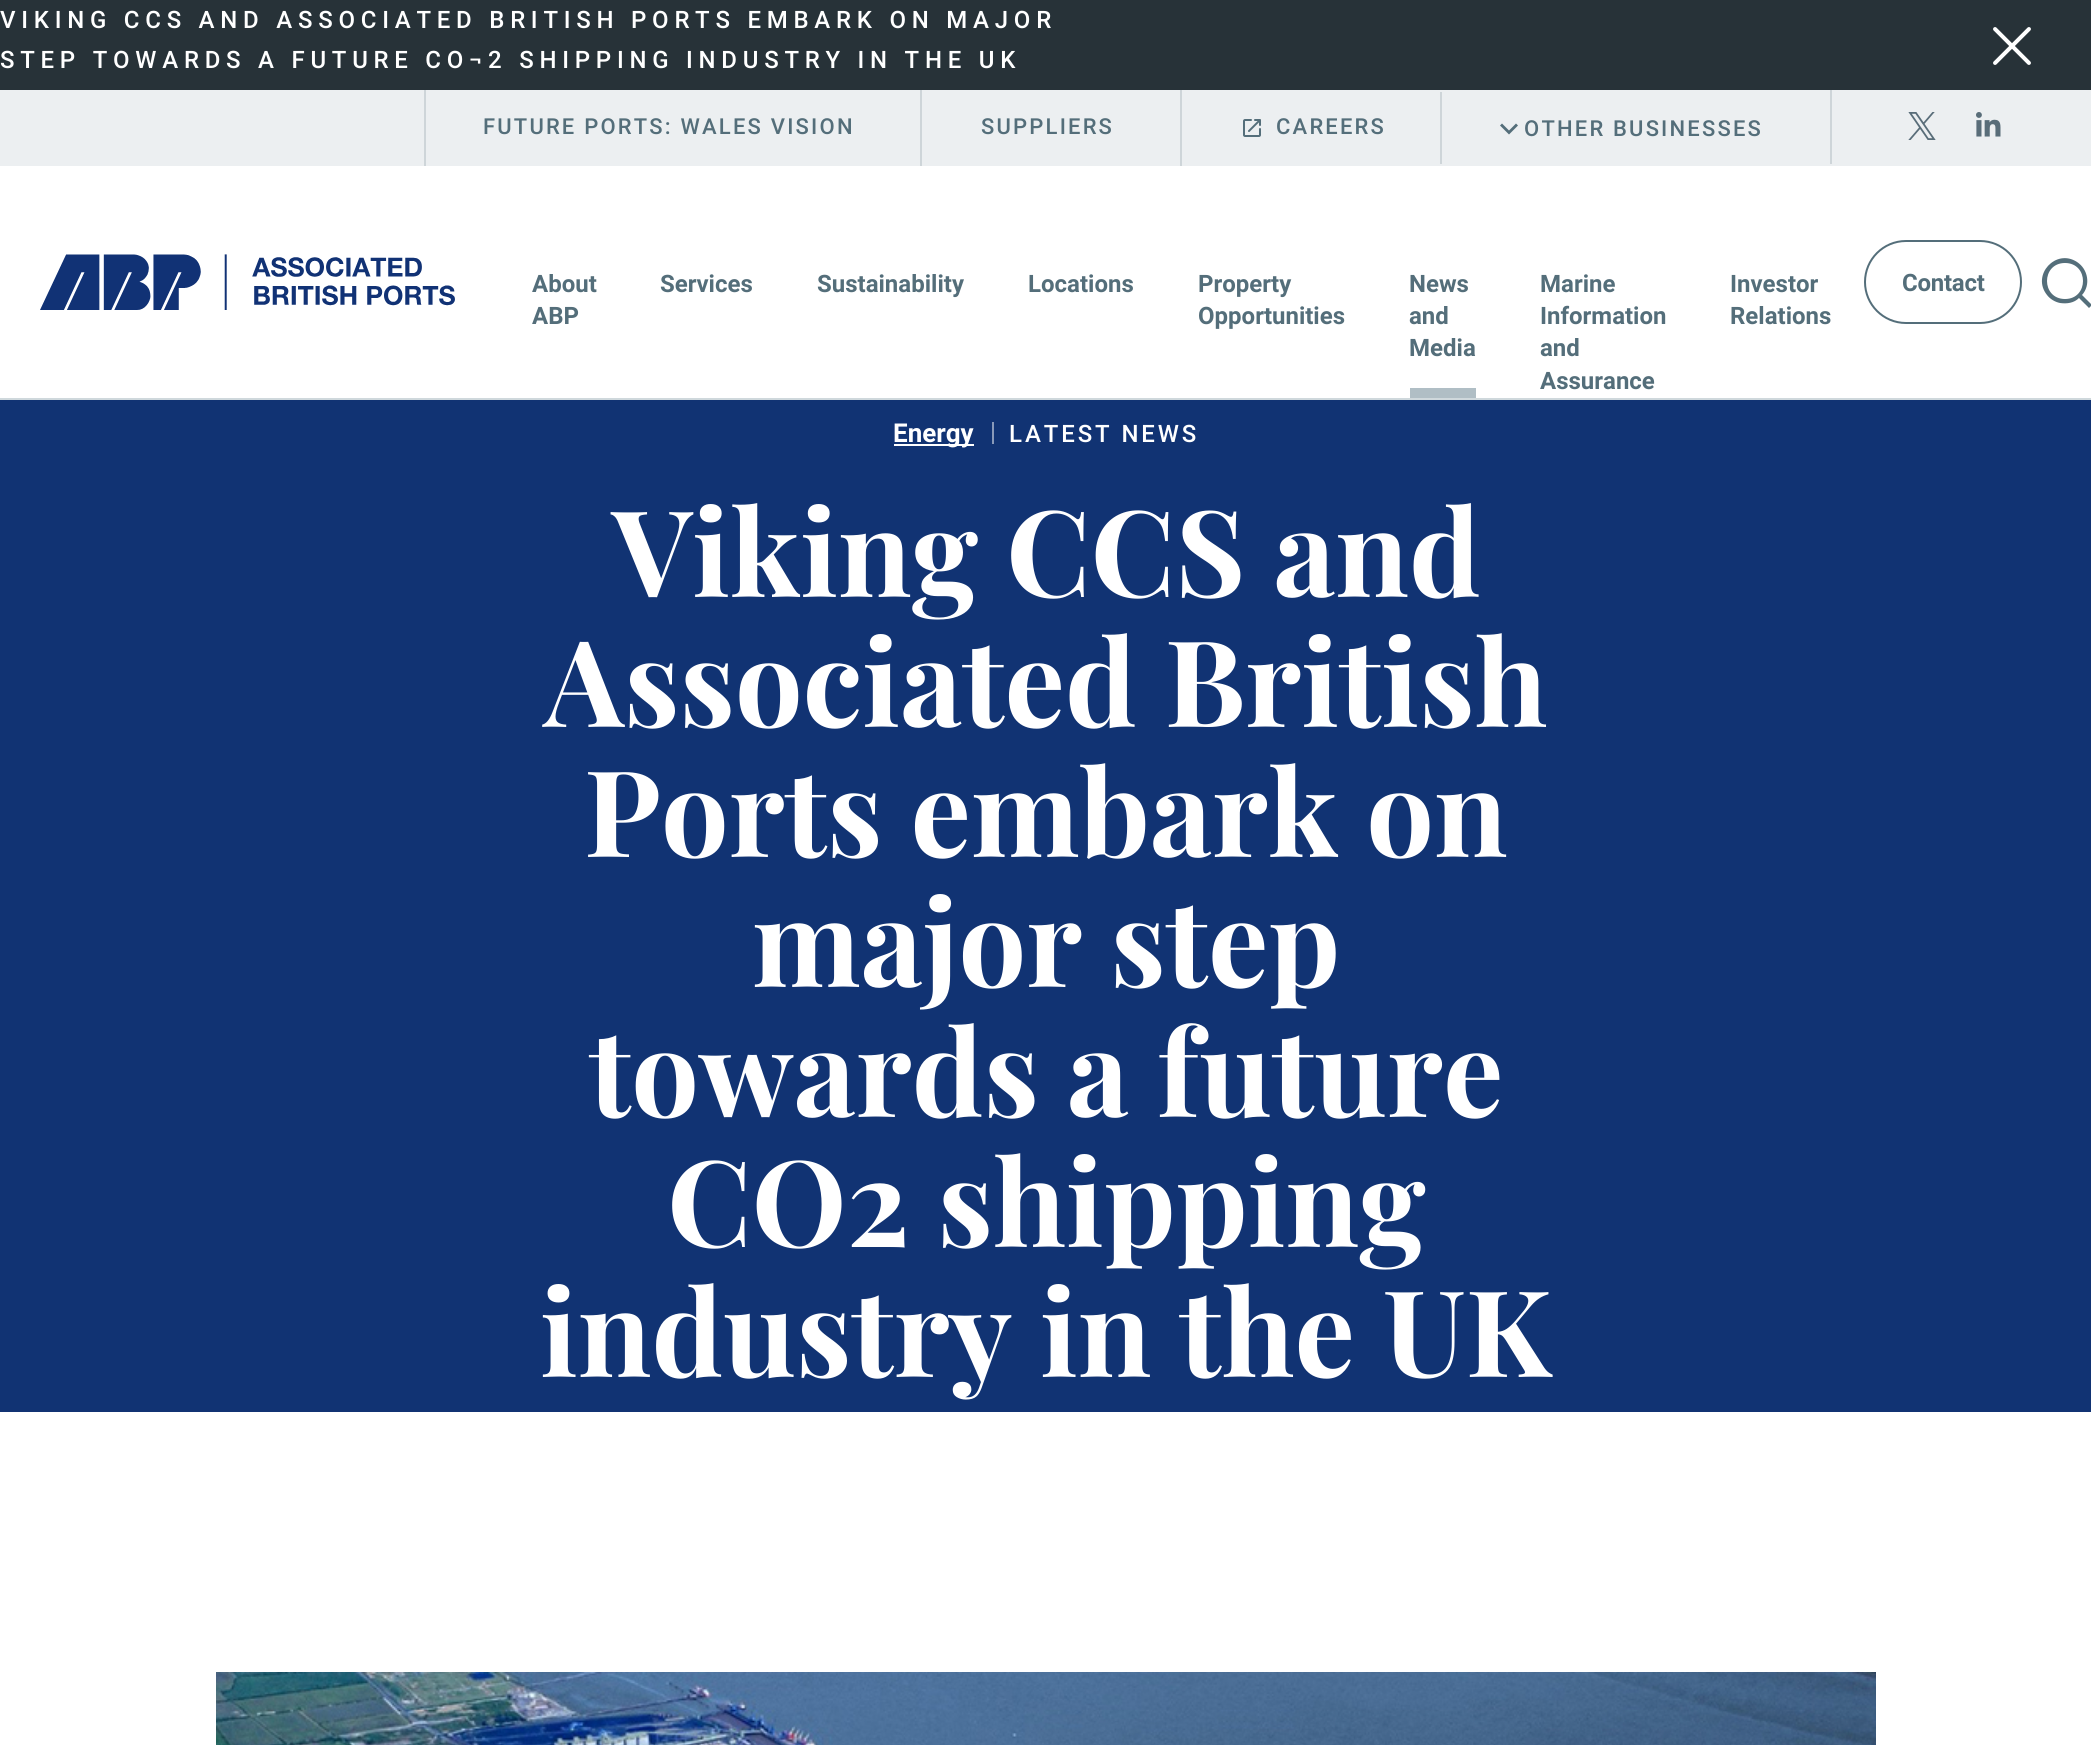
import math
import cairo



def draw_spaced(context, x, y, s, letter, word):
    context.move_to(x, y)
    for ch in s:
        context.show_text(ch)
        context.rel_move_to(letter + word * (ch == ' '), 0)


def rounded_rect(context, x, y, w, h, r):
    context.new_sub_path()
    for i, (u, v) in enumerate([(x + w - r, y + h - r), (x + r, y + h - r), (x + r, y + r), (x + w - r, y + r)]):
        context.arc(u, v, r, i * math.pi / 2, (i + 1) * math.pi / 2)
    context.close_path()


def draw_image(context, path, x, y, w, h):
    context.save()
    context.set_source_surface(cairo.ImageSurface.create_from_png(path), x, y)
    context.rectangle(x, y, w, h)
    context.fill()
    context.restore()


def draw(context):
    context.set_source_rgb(1, 1, 1)
    context.paint()
    context.set_source_rgb(39 / 255, 50 / 255, 56 / 255)
    context.rectangle(0, 0, 2091, 90)
    context.fill()
    draw_image(context, "images/1.png", 1993, 27, 38, 38)
    context.set_source_rgb(207 / 255, 216 / 255, 220 / 255)
    context.rectangle(0, 398, 2091, 2)
    context.fill()
    context.set_source_rgb(236 / 255, 239 / 255, 241 / 255)
    context.rectangle(0, 90, 2091, 76)
    context.fill()
    context.set_source_rgb(206 / 255, 213 / 255, 217 / 255)
    context.rectangle(424, 90, 2, 76)
    context.fill()
    context.rectangle(920, 90, 2, 76)
    context.fill()
    context.rectangle(1180, 90, 2, 76)
    context.fill()
    draw_image(context, "images/2.png", 1243, 119, 18, 18)
    context.rectangle(1440, 92, 2, 72)
    context.fill()
    context.set_source_rgb(84 / 255, 110 / 255, 122 / 255)
    context.new_path()
    context.move_to(1516, 123.5)
    context.line_to(1518, 125.5)
    context.line_to(1509, 134.5)
    context.line_to(1500, 125.5)
    context.line_to(1502, 123.5)
    context.line_to(1509, 130.5)
    context.close_path()
    context.fill()
    context.set_source_rgb(206 / 255, 213 / 255, 217 / 255)
    context.rectangle(1830, 90, 2, 74)
    context.fill()
    draw_image(context, "images/3.png", 1908, 112, 28, 28)
    draw_image(context, "images/4.png", 1976, 112, 25, 25)
    draw_image(context, "images/5.png", 40, 254, 415, 56)
    context.set_source_rgb(176 / 255, 190 / 255, 197 / 255)
    context.rectangle(1410, 388, 66, 10)
    context.fill()
    rounded_rect(context, 1865, 241, 156, 82, 41)
    context.set_source_rgb(84 / 255, 110 / 255, 122 / 255)
    context.stroke()
    context.new_path()
    context.move_to(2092, 305)
    context.line_to(2082, 295)
    context.curve_to(2091, 285, 2088, 269, 2077, 262)
    context.curve_to(2056, 248, 2031, 275, 2047, 295)
    context.curve_to(2050, 299, 2055, 302, 2060, 303)
    context.curve_to(2067, 304, 2074, 303, 2079, 298)
    context.line_to(2089, 308)
    context.close_path()
    context.move_to(2065, 299)
    context.curve_to(2041, 299, 2041, 263, 2065, 263)
    context.curve_to(2089, 263, 2089, 299, 2065, 299)
    context.close_path()
    context.fill()
    context.set_source_rgb(17 / 255, 51 / 255, 115 / 255)
    context.rectangle(0, 400, 2091, 1012)
    context.fill()
    context.set_source_rgb(1, 1, 1)
    context.rectangle(894, 444, 80, 2)
    context.fill()
    context.set_source_rgb(136 / 255, 153 / 255, 185 / 255)
    context.rectangle(992, 422, 2, 22)
    context.fill()
    draw_image(context, "images/6.png", 216, 1672, 1660, 73)
    context.select_font_face("Roboto Medium")
    context.set_font_size(24)
    context.set_source_rgb(1, 1, 1)
    draw_spaced(context, 0, 28, "VIKING CCS AND ASSOCIATED BRITISH PORTS EMBARK ON MAJOR", 5.75, 0)
    draw_spaced(context, 0, 68, "STEP TOWARDS A FUTURE CO¬2 SHIPPING INDUSTRY IN THE UK", 5.75, 0)
    context.set_font_size(22)
    context.set_source_rgb(84 / 255, 110 / 255, 122 / 255)
    draw_spaced(context, 483, 134, "FUTURE PORTS: WALES VISION", 2.2, 0)
    draw_spaced(context, 981, 134, "SUPPLIERS", 2.2, 0)
    draw_spaced(context, 1276, 134, "CAREERS", 2.2, 0)
    draw_spaced(context, 1524, 136, "OTHER BUSINESSES", 2.2, 0)
    context.select_font_face("Roboto", cairo.FontSlant.NORMAL, cairo.FontWeight.BOLD)
    context.set_font_size(24)
    context.move_to(532, 292)
    context.show_text("About")
    context.move_to(532, 324)
    context.show_text("ABP")
    context.move_to(660, 292)
    context.show_text("Services")
    context.move_to(817, 292)
    context.show_text("Sustainability")
    context.move_to(1028, 292)
    context.show_text("Locations")
    context.move_to(1198, 292)
    context.show_text("Property")
    context.move_to(1198, 324)
    context.show_text("Opportunities")
    context.move_to(1409, 292)
    context.show_text("News")
    context.move_to(1409, 324)
    context.show_text("and")
    context.move_to(1409, 356)
    context.show_text("Media")
    context.move_to(1540, 292)
    context.show_text("Marine")
    context.move_to(1540, 324)
    context.show_text("Information")
    context.move_to(1540, 356)
    context.show_text("and")
    context.move_to(1540, 389)
    context.show_text("Assurance")
    context.move_to(1730, 292)
    context.show_text("Investor")
    context.move_to(1730, 324)
    context.show_text("Relations")
    draw_spaced(context, 1902, 291, "Contact", -0.25, 0)
    context.set_font_size(26)
    context.set_source_rgb(1, 1, 1)
    context.move_to(893, 442)
    context.show_text("Energy")
    context.select_font_face("Roboto Medium")
    context.set_font_size(24)
    draw_spaced(context, 1009, 442, "LATEST NEWS", 2.9, 0)
    context.select_font_face("Playfair Display", cairo.FontSlant.NORMAL, cairo.FontWeight.BOLD)
    context.set_font_size(120)
    context.move_to(612, 597)
    context.show_text("Viking CCS and")
    context.move_to(544, 727)
    context.show_text("Associated British")
    context.move_to(584, 857)
    context.show_text("Ports embark on")
    context.move_to(752, 987)
    context.show_text("major step")
    context.move_to(589, 1117)
    context.show_text("towards a future")
    context.move_to(667, 1247)
    context.show_text("CO2 shipping")
    context.move_to(540, 1377)
    context.show_text("industry in the UK")


surface = cairo.ImageSurface(cairo.Format.RGB24, 2091, 1745)
context = cairo.Context(surface)
options = cairo.FontOptions()
options.set_hint_metrics(cairo.HintMetrics.OFF)
options.set_hint_style(cairo.HintStyle.NONE)
context.set_font_options(options)
context.set_miter_limit(4)
draw(context)
surface.write_to_png("out.png")
